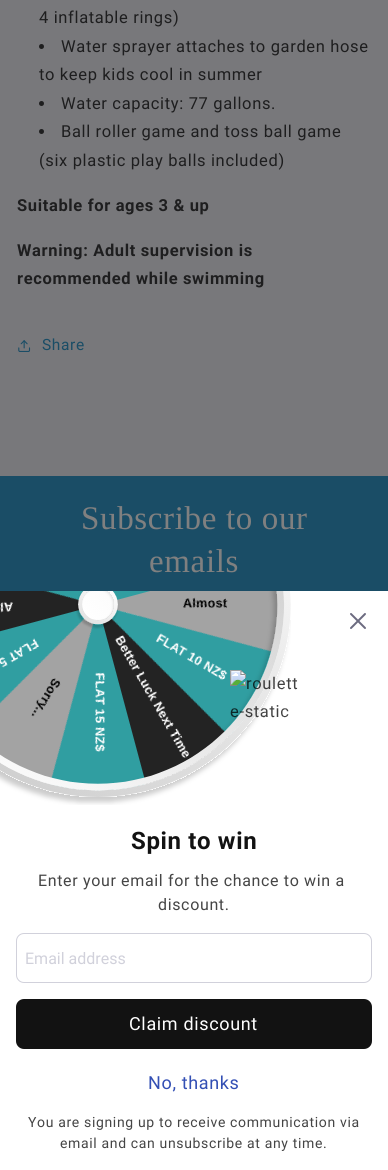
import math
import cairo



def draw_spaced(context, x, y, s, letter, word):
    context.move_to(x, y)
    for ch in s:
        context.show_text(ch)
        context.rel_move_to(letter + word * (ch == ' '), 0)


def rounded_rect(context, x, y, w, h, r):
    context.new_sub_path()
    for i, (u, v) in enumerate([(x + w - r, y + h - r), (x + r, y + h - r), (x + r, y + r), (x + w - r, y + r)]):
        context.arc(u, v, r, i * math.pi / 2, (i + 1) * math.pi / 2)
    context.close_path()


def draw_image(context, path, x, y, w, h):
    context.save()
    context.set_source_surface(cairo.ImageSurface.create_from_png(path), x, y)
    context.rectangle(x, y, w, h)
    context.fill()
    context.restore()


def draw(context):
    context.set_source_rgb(120 / 255, 120 / 255, 123 / 255)
    context.paint()
    context.set_source_rgb(30 / 255, 30 / 255, 31 / 255)
    context.arc(41.5, 46.5, 2.5, 0, 2 * math.pi)
    context.fill()
    context.arc(41.5, 103.5, 2.5, 0, 2 * math.pi)
    context.fill()
    context.arc(41.5, 131.5, 2.5, 0, 2 * math.pi)
    context.fill()
    draw_image(context, "images/1.png", 18, 340, 13, 12)
    context.set_source_rgb(26 / 255, 77 / 255, 102 / 255)
    context.rectangle(0, 476, 388, 115)
    context.fill()
    context.set_source_rgb(1, 1, 1)
    context.rectangle(0, 591, 388, 579)
    context.fill()
    draw_image(context, "images/2.png", 0, 591, 284, 200)
    draw_image(context, "images/3.png", 0, 591, 291, 214)
    draw_image(context, "images/4.png", 230, 670, 68, 48)
    draw_image(context, "images/5.png", 350, 613, 16, 16)
    rounded_rect(context, 16.5, 933.5, 355, 49, 7.5)
    context.set_source_rgb(209 / 255, 209 / 255, 219 / 255)
    context.set_line_width(1)
    context.stroke()
    context.set_source_rgb(18 / 255, 18 / 255, 18 / 255)
    rounded_rect(context, 16, 999, 356, 50, 8)
    context.fill()
    context.select_font_face("Roboto")
    context.set_font_size(16.5)
    context.set_source_rgb(30 / 255, 30 / 255, 31 / 255)
    draw_spaced(context, 39, 23, "4 inflatable rings)", 0.65, 0)
    draw_spaced(context, 61, 52, "Water sprayer attaches to garden hose", 0.65, 0)
    draw_spaced(context, 39, 80, "to keep kids cool in summer", 0.65, 0)
    draw_spaced(context, 61, 109, "Water capacity: 77 gallons.", 0.65, 0)
    draw_spaced(context, 61, 137, "Ball roller game and toss ball game", 0.65, 0)
    draw_spaced(context, 39, 166, "(six plastic play balls included)", 0.65, 0)
    context.select_font_face("Roboto", cairo.FontSlant.NORMAL, cairo.FontWeight.BOLD)
    draw_spaced(context, 17, 211, "Suitable for ages 3 & up", 0.65, 0)
    draw_spaced(context, 17, 256, "Warning: Adult supervision is", 0.65, 0)
    draw_spaced(context, 17, 284, "recommended while swimming", 0.65, 0)
    context.select_font_face("Roboto")
    context.set_font_size(15.5)
    context.set_source_rgb(26 / 255, 77 / 255, 102 / 255)
    draw_spaced(context, 42, 350, "Share", 0.65, 0)
    context.select_font_face("Liberation Serif")
    context.set_font_size(33)
    context.set_source_rgb(128 / 255, 128 / 255, 128 / 255)
    draw_spaced(context, 81, 529, "Subscribe to our", 0.65, 0)
    draw_spaced(context, 149, 572, "emails", 0.65, 0)
    context.select_font_face("Roboto", cairo.FontSlant.NORMAL, cairo.FontWeight.BOLD)
    context.set_font_size(24)
    context.set_source_rgb(18 / 255, 18 / 255, 18 / 255)
    draw_spaced(context, 131, 849, "Spin to win", 0.65, 0)
    context.select_font_face("Roboto")
    context.set_font_size(16)
    context.set_source_rgb(69 / 255, 69 / 255, 69 / 255)
    draw_spaced(context, 38, 886, "Enter your email for the chance to win a", 0.65, 0)
    draw_spaced(context, 158, 910, "discount.", 0.65, 0)
    context.set_source_rgb(209 / 255, 209 / 255, 219 / 255)
    context.move_to(25, 964)
    context.show_text("Email address")
    context.set_font_size(18)
    context.set_source_rgb(1, 1, 1)
    draw_spaced(context, 129, 1030, "Claim discount", 0.65, 0)
    context.set_source_rgb(51 / 255, 79 / 255, 180 / 255)
    draw_spaced(context, 148, 1089, "No, thanks", 0.65, 0)
    context.set_font_size(14)
    context.set_source_rgb(69 / 255, 69 / 255, 69 / 255)
    draw_spaced(context, 28, 1127, "You are signing up to receive communication via", 0.65, 0)
    draw_spaced(context, 60, 1148, "email and can unsubscribe at any time.", 0.65, 0)


surface = cairo.ImageSurface(cairo.Format.RGB24, 388, 1170)
context = cairo.Context(surface)
options = cairo.FontOptions()
options.set_hint_metrics(cairo.HintMetrics.OFF)
options.set_hint_style(cairo.HintStyle.NONE)
context.set_font_options(options)
context.set_miter_limit(4)
draw(context)
surface.write_to_png("out.png")
